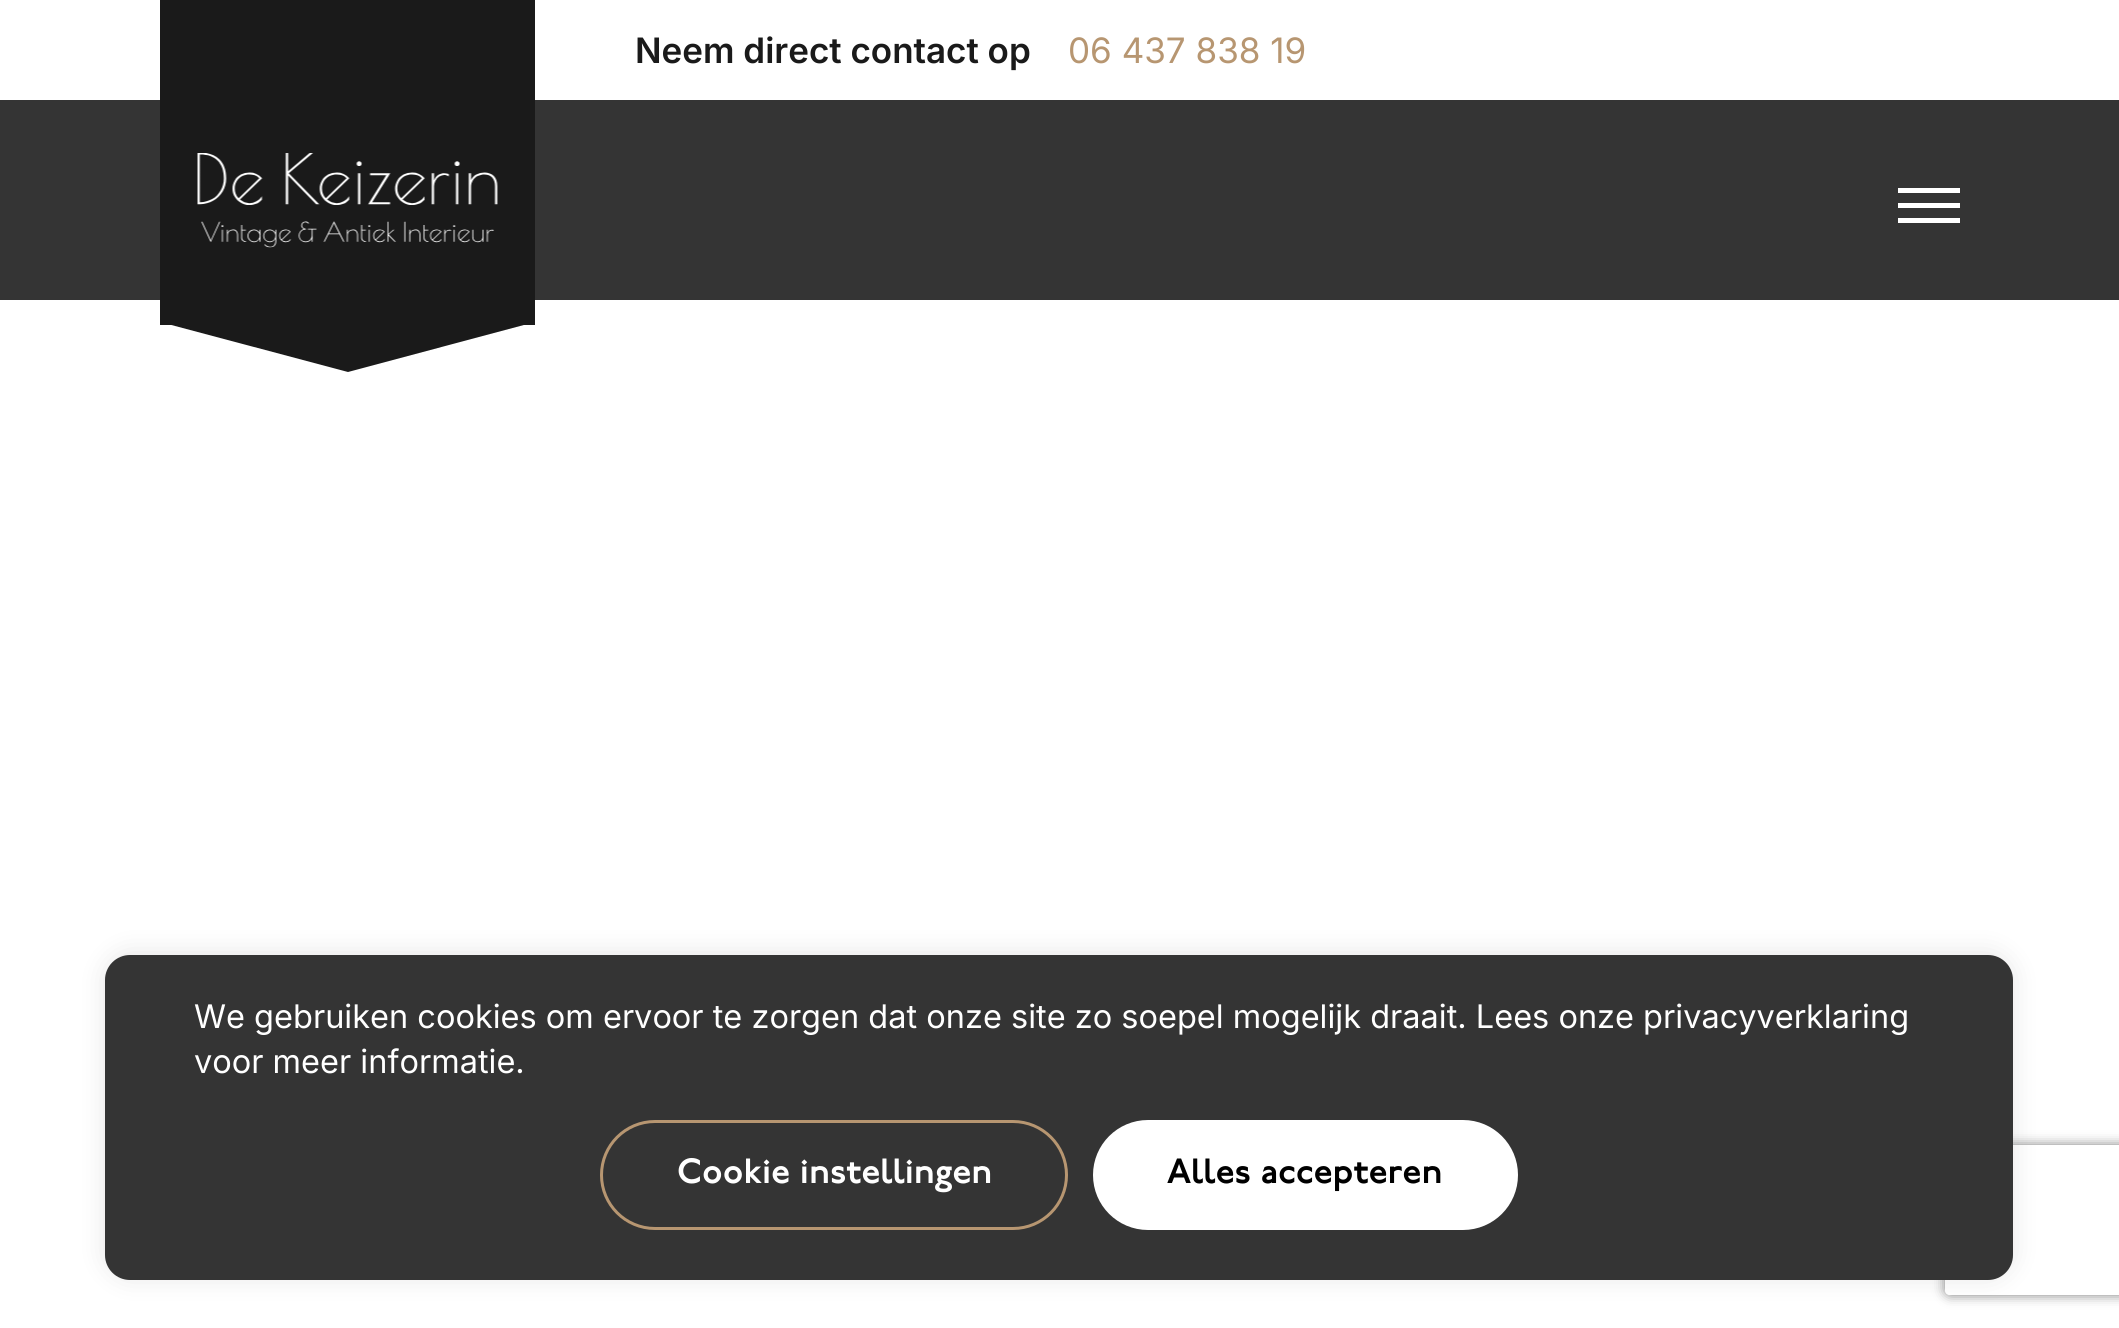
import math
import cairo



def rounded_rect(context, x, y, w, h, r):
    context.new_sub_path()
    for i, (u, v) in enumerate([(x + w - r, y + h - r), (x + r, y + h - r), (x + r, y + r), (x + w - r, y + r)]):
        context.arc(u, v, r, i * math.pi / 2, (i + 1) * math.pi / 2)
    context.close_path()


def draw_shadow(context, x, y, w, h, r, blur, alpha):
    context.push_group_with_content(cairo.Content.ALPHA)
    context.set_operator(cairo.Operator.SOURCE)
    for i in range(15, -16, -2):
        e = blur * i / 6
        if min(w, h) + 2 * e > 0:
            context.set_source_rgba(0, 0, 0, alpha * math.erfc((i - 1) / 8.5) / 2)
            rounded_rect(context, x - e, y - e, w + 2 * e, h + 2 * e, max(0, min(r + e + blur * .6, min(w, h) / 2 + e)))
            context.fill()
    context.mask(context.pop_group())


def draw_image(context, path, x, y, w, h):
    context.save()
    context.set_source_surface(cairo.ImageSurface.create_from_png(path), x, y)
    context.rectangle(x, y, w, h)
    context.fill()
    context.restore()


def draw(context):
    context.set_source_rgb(1, 1, 1)
    context.paint()
    context.set_source_rgb(52 / 255, 52 / 255, 52 / 255)
    context.rectangle(0, 100, 2119, 200)
    context.fill()
    context.set_source_rgb(26 / 255, 26 / 255, 26 / 255)
    context.rectangle(160, 0, 375, 300)
    context.fill()
    draw_image(context, "images/1.png", 197, 153, 301, 95)
    context.new_path()
    context.move_to(160, 322)
    context.line_to(535, 322)
    context.line_to(348, 372)
    context.close_path()
    context.fill()
    context.rectangle(160, 300, 375, 25)
    context.fill()
    context.set_source_rgb(1, 1, 1)
    context.rectangle(1898, 188, 62, 5)
    context.fill()
    context.rectangle(1898, 203, 62, 5)
    context.fill()
    context.rectangle(1898, 218, 62, 5)
    context.fill()
    context.set_source_rgb(172 / 255, 171 / 255, 171 / 255)
    draw_shadow(context, 105, 953, 1908, 325, 25, 12.5, 0.3)
    context.save()
    context.set_fill_rule(cairo.FillRule.EVEN_ODD)
    context.new_path()
    context.move_to(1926, 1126)
    context.line_to(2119, 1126)
    context.line_to(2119, 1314)
    context.line_to(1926, 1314)
    context.close_path()
    context.move_to(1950, 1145)
    context.line_to(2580, 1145)
    context.curve_to(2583, 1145, 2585, 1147, 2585, 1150)
    context.line_to(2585, 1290)
    context.curve_to(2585, 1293, 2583, 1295, 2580, 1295)
    context.line_to(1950, 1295)
    context.curve_to(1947, 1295, 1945, 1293, 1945, 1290)
    context.line_to(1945, 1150)
    context.curve_to(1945, 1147, 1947, 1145, 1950, 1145)
    context.close_path()
    context.clip()
    context.set_source_rgb(128 / 255, 128 / 255, 128 / 255)
    draw_shadow(context, 1945, 1145, 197, 150, 5, 6, 1)
    context.restore()
    context.set_source_rgb(52 / 255, 52 / 255, 52 / 255)
    rounded_rect(context, 105, 955, 1908, 325, 25)
    context.fill()
    rounded_rect(context, 601.5, 1121.5, 465, 107, 53.5)
    context.set_source_rgb(183 / 255, 150 / 255, 113 / 255)
    context.set_line_width(3)
    context.stroke()
    context.set_source_rgb(1, 1, 1)
    rounded_rect(context, 1093, 1120, 425, 110, 55)
    context.fill()
    context.select_font_face("Inter SemiBold")
    context.set_font_size(35)
    context.set_source_rgb(26 / 255, 26 / 255, 26 / 255)
    context.move_to(635, 63)
    context.show_text("Neem direct contact op")
    context.select_font_face("Inter")
    context.set_source_rgb(183 / 255, 150 / 255, 113 / 255)
    context.move_to(1068, 63)
    context.show_text("06 437 838 19")
    context.set_font_size(32.5)
    context.set_source_rgb(1, 1, 1)
    context.move_to(194, 1028)
    context.show_text("We gebruiken cookies om ervoor te zorgen dat onze site zo soepel mogelijk draait. Lees onze privacyverklaring")
    context.move_to(194, 1073)
    context.show_text("voor meer informatie.")
    context.select_font_face("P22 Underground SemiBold")
    context.set_font_size(35)
    context.move_to(677, 1183)
    context.show_text("Cookie instellingen")
    context.set_source_rgb(0, 0, 0)
    context.move_to(1167, 1183)
    context.show_text("Alles accepteren")


surface = cairo.ImageSurface(cairo.Format.RGB24, 2119, 1328)
context = cairo.Context(surface)
options = cairo.FontOptions()
options.set_hint_metrics(cairo.HintMetrics.OFF)
options.set_hint_style(cairo.HintStyle.NONE)
context.set_font_options(options)
context.set_miter_limit(4)
draw(context)
surface.write_to_png("out.png")
